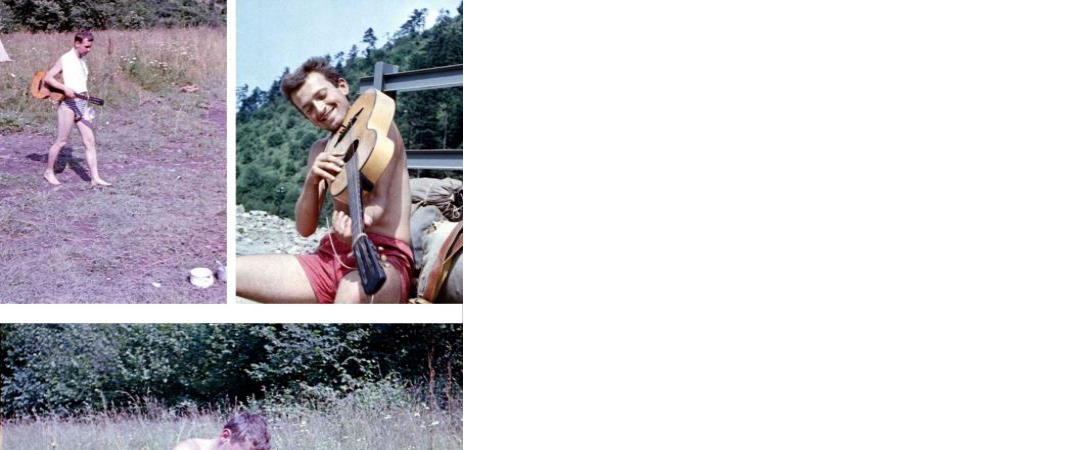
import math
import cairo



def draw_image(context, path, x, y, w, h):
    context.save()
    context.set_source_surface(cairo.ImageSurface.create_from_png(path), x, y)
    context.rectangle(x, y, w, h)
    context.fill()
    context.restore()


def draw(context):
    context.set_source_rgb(1, 1, 1)
    context.paint()
    draw_image(context, "images/1.png", 0, 0, 463, 450)


surface = cairo.ImageSurface(cairo.Format.RGB24, 1074, 450)
context = cairo.Context(surface)
options = cairo.FontOptions()
options.set_hint_metrics(cairo.HintMetrics.OFF)
options.set_hint_style(cairo.HintStyle.NONE)
context.set_font_options(options)
context.set_miter_limit(4)
draw(context)
surface.write_to_png("out.png")
